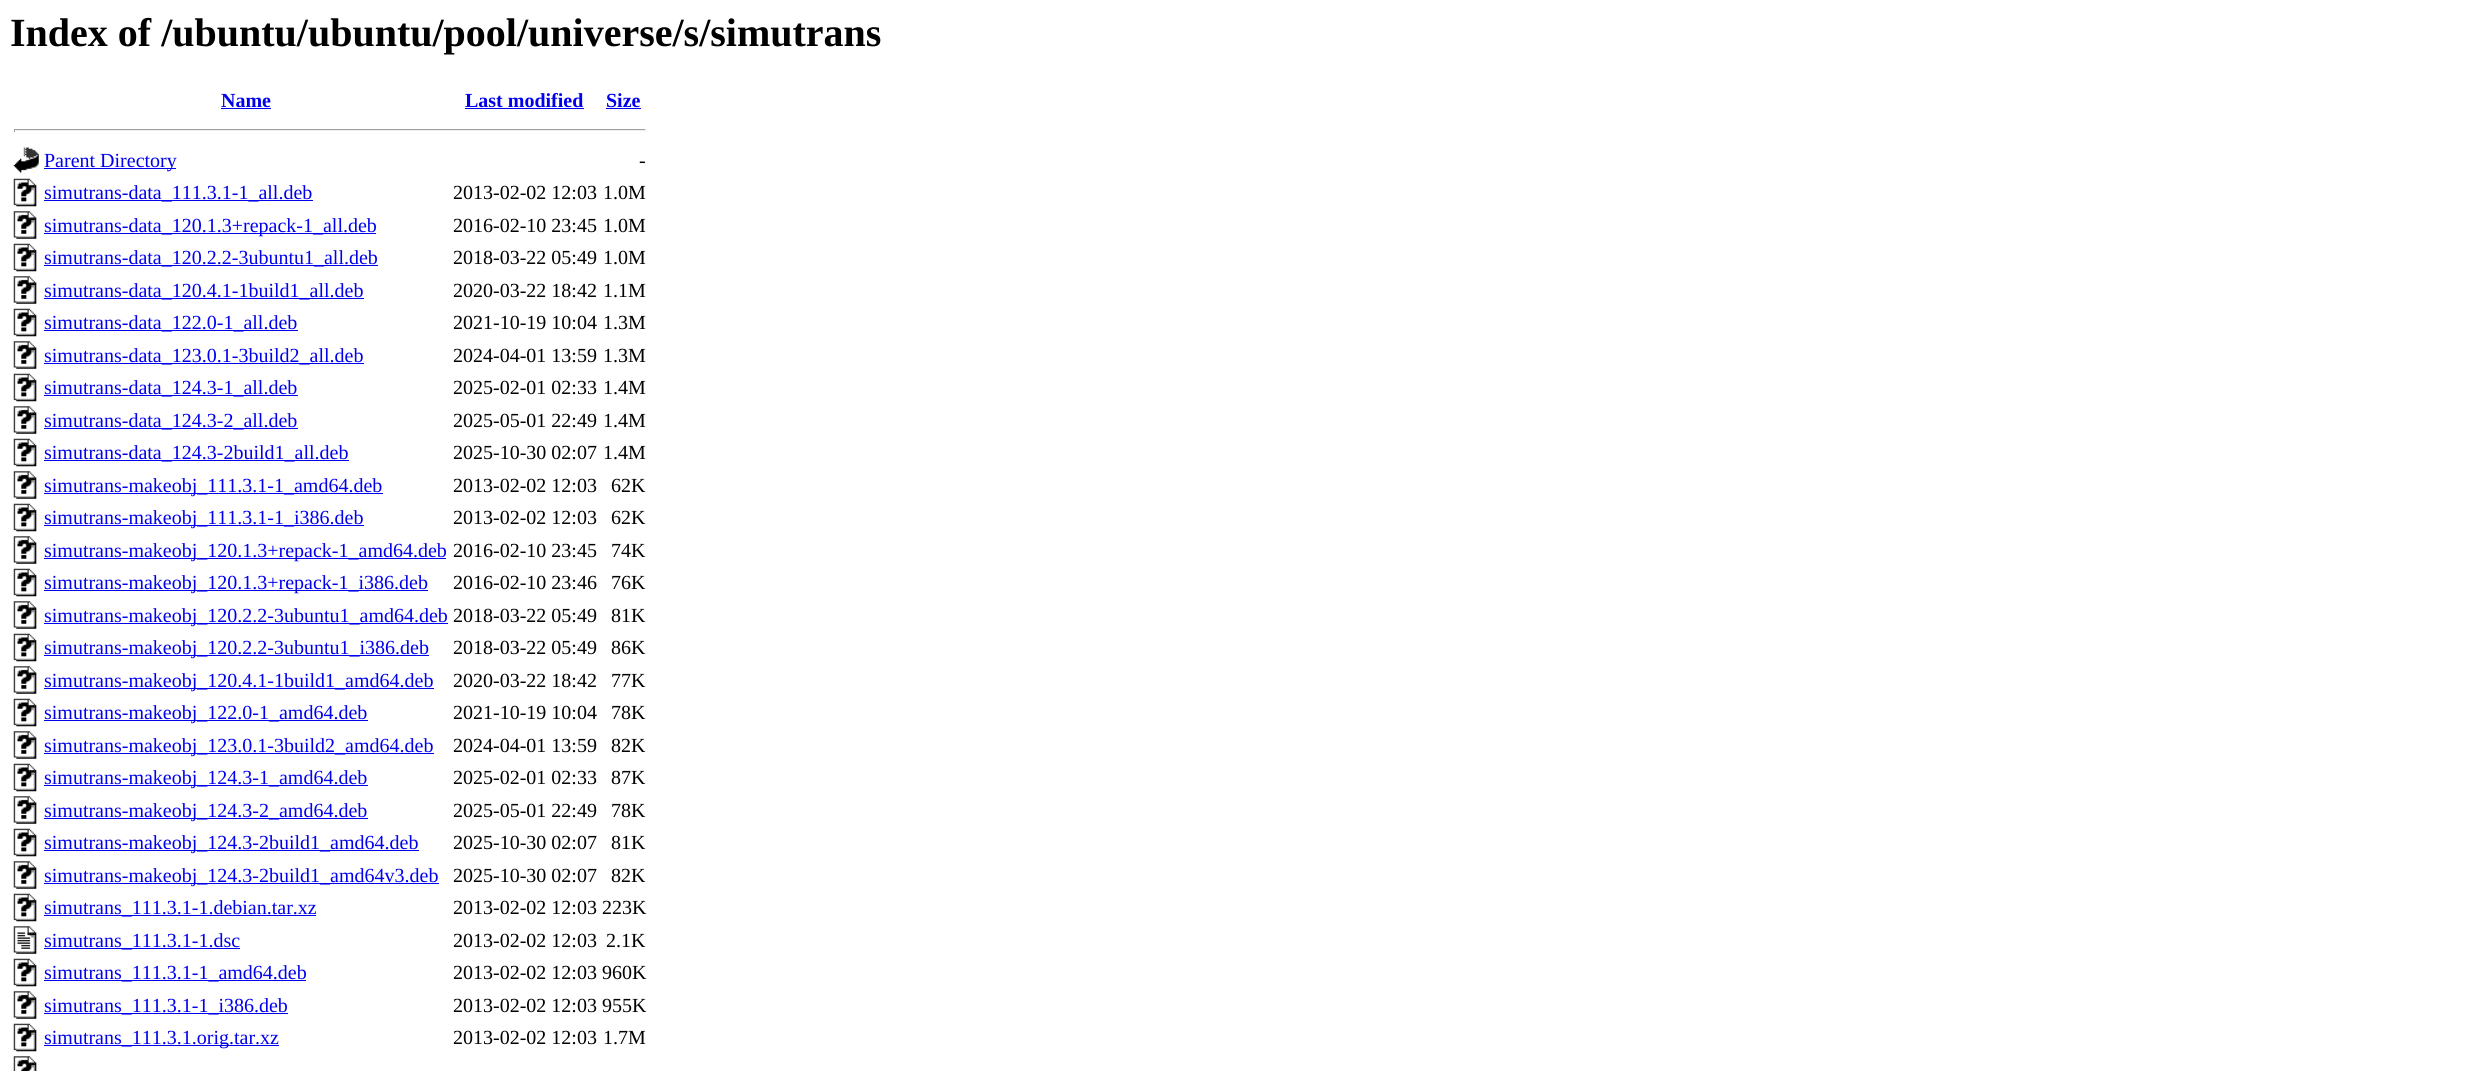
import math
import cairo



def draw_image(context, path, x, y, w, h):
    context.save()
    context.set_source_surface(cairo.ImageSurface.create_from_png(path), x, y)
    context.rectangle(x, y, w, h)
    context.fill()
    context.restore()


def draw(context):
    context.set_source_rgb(1, 1, 1)
    context.paint()
    context.set_source_rgb(0, 0, 238 / 255)
    context.rectangle(221, 108, 50, 1)
    context.fill()
    context.rectangle(465, 108, 119, 1)
    context.fill()
    context.rectangle(606, 108, 35, 1)
    context.fill()
    context.set_source_rgb(159 / 255, 159 / 255, 159 / 255)
    context.rectangle(14, 129, 632, 1)
    context.fill()
    context.set_source_rgb(238 / 255, 238 / 255, 238 / 255)
    context.rectangle(645, 129, 1, 3)
    context.fill()
    context.rectangle(14, 130, 632, 1)
    context.fill()
    context.set_source_rgb(159 / 255, 159 / 255, 159 / 255)
    context.rectangle(14, 129, 1, 3)
    context.fill()
    draw_image(context, "images/1.png", 13, 147, 26, 26)
    context.set_source_rgb(0, 0, 238 / 255)
    context.rectangle(44, 168, 132, 1)
    context.fill()
    draw_image(context, "images/2.png", 13, 178, 24, 29)
    context.rectangle(44, 200, 269, 1)
    context.fill()
    draw_image(context, "images/3.png", 13, 211, 24, 28)
    context.rectangle(44, 233, 332, 1)
    context.fill()
    draw_image(context, "images/2.png", 13, 243, 24, 29)
    context.rectangle(44, 265, 334, 1)
    context.fill()
    draw_image(context, "images/4.png", 13, 276, 24, 28)
    context.rectangle(44, 298, 320, 1)
    context.fill()
    draw_image(context, "images/2.png", 13, 308, 24, 29)
    context.rectangle(44, 330, 254, 1)
    context.fill()
    draw_image(context, "images/3.png", 13, 341, 24, 28)
    context.rectangle(44, 363, 320, 1)
    context.fill()
    draw_image(context, "images/2.png", 13, 373, 24, 29)
    context.rectangle(44, 395, 254, 1)
    context.fill()
    draw_image(context, "images/3.png", 13, 406, 24, 28)
    context.rectangle(44, 428, 254, 1)
    context.fill()
    draw_image(context, "images/2.png", 13, 438, 24, 29)
    context.rectangle(44, 460, 305, 1)
    context.fill()
    draw_image(context, "images/3.png", 13, 471, 24, 28)
    context.rectangle(44, 493, 339, 1)
    context.fill()
    draw_image(context, "images/2.png", 13, 503, 24, 29)
    context.rectangle(44, 525, 320, 1)
    context.fill()
    draw_image(context, "images/3.png", 13, 536, 24, 28)
    context.rectangle(44, 558, 402, 1)
    context.fill()
    draw_image(context, "images/2.png", 13, 568, 24, 29)
    context.rectangle(44, 590, 384, 1)
    context.fill()
    draw_image(context, "images/3.png", 13, 601, 24, 28)
    context.rectangle(44, 623, 404, 1)
    context.fill()
    draw_image(context, "images/2.png", 13, 633, 24, 29)
    context.rectangle(44, 655, 385, 1)
    context.fill()
    draw_image(context, "images/3.png", 13, 666, 24, 28)
    context.rectangle(44, 688, 390, 1)
    context.fill()
    draw_image(context, "images/2.png", 13, 698, 24, 29)
    context.rectangle(44, 720, 324, 1)
    context.fill()
    draw_image(context, "images/3.png", 13, 731, 24, 28)
    context.rectangle(44, 753, 390, 1)
    context.fill()
    draw_image(context, "images/2.png", 13, 763, 24, 29)
    context.rectangle(44, 785, 324, 1)
    context.fill()
    draw_image(context, "images/3.png", 13, 796, 24, 28)
    context.rectangle(44, 818, 324, 1)
    context.fill()
    draw_image(context, "images/2.png", 13, 828, 24, 29)
    context.rectangle(44, 850, 375, 1)
    context.fill()
    draw_image(context, "images/3.png", 13, 861, 24, 28)
    context.rectangle(44, 883, 395, 1)
    context.fill()
    draw_image(context, "images/2.png", 13, 893, 24, 29)
    context.rectangle(44, 915, 272, 1)
    context.fill()
    draw_image(context, "images/5.png", 13, 926, 24, 28)
    context.rectangle(44, 948, 196, 1)
    context.fill()
    draw_image(context, "images/2.png", 13, 958, 24, 29)
    context.rectangle(44, 980, 262, 1)
    context.fill()
    draw_image(context, "images/3.png", 13, 991, 24, 28)
    context.rectangle(44, 1013, 244, 1)
    context.fill()
    draw_image(context, "images/6.png", 13, 1023, 24, 29)
    context.rectangle(44, 1045, 235, 1)
    context.fill()
    draw_image(context, "images/7.png", 13, 1056, 24, 15)
    context.select_font_face("Liberation Serif", cairo.FontSlant.NORMAL, cairo.FontWeight.BOLD)
    context.set_font_size(40)
    context.set_source_rgb(0, 0, 0)
    context.move_to(10, 46)
    context.show_text("Index of /ubuntu/ubuntu/pool/universe/s/simutrans")
    context.set_font_size(20)
    context.set_source_rgb(0, 0, 238 / 255)
    context.move_to(221, 107)
    context.show_text("Name")
    context.move_to(465, 107)
    context.show_text("Last modified")
    context.move_to(606, 107)
    context.show_text("Size")
    context.select_font_face("Liberation Serif")
    context.move_to(44, 167)
    context.show_text("Parent Directory")
    context.set_source_rgb(0, 0, 0)
    context.move_to(639, 167)
    context.show_text("-")
    context.set_source_rgb(0, 0, 238 / 255)
    context.move_to(44, 199)
    context.show_text("simutrans-data_111.3.1-1_all.deb")
    context.set_source_rgb(0, 0, 0)
    context.move_to(453, 199)
    context.show_text("2013-02-02 12:03")
    context.move_to(603, 199)
    context.show_text("1.0M")
    context.set_source_rgb(0, 0, 238 / 255)
    context.move_to(44, 232)
    context.show_text("simutrans-data_120.1.3+repack-1_all.deb")
    context.set_source_rgb(0, 0, 0)
    context.move_to(453, 232)
    context.show_text("2016-02-10 23:45")
    context.move_to(603, 232)
    context.show_text("1.0M")
    context.set_source_rgb(0, 0, 238 / 255)
    context.move_to(44, 264)
    context.show_text("simutrans-data_120.2.2-3ubuntu1_all.deb")
    context.set_source_rgb(0, 0, 0)
    context.move_to(453, 264)
    context.show_text("2018-03-22 05:49")
    context.move_to(603, 264)
    context.show_text("1.0M")
    context.set_source_rgb(0, 0, 238 / 255)
    context.move_to(44, 297)
    context.show_text("simutrans-data_120.4.1-1build1_all.deb")
    context.set_source_rgb(0, 0, 0)
    context.move_to(453, 297)
    context.show_text("2020-03-22 18:42")
    context.move_to(603, 297)
    context.show_text("1.1M")
    context.set_source_rgb(0, 0, 238 / 255)
    context.move_to(44, 329)
    context.show_text("simutrans-data_122.0-1_all.deb")
    context.set_source_rgb(0, 0, 0)
    context.move_to(453, 329)
    context.show_text("2021-10-19 10:04")
    context.move_to(603, 329)
    context.show_text("1.3M")
    context.set_source_rgb(0, 0, 238 / 255)
    context.move_to(44, 362)
    context.show_text("simutrans-data_123.0.1-3build2_all.deb")
    context.set_source_rgb(0, 0, 0)
    context.move_to(453, 362)
    context.show_text("2024-04-01 13:59")
    context.move_to(603, 362)
    context.show_text("1.3M")
    context.set_source_rgb(0, 0, 238 / 255)
    context.move_to(44, 394)
    context.show_text("simutrans-data_124.3-1_all.deb")
    context.set_source_rgb(0, 0, 0)
    context.move_to(453, 394)
    context.show_text("2025-02-01 02:33")
    context.move_to(603, 394)
    context.show_text("1.4M")
    context.set_source_rgb(0, 0, 238 / 255)
    context.move_to(44, 427)
    context.show_text("simutrans-data_124.3-2_all.deb")
    context.set_source_rgb(0, 0, 0)
    context.move_to(453, 427)
    context.show_text("2025-05-01 22:49")
    context.move_to(603, 427)
    context.show_text("1.4M")
    context.set_source_rgb(0, 0, 238 / 255)
    context.move_to(44, 459)
    context.show_text("simutrans-data_124.3-2build1_all.deb")
    context.set_source_rgb(0, 0, 0)
    context.move_to(453, 459)
    context.show_text("2025-10-30 02:07")
    context.move_to(603, 459)
    context.show_text("1.4M")
    context.set_source_rgb(0, 0, 238 / 255)
    context.move_to(44, 492)
    context.show_text("simutrans-makeobj_111.3.1-1_amd64.deb")
    context.set_source_rgb(0, 0, 0)
    context.move_to(453, 492)
    context.show_text("2013-02-02 12:03")
    context.move_to(611, 492)
    context.show_text("62K")
    context.set_source_rgb(0, 0, 238 / 255)
    context.move_to(44, 524)
    context.show_text("simutrans-makeobj_111.3.1-1_i386.deb")
    context.set_source_rgb(0, 0, 0)
    context.move_to(453, 524)
    context.show_text("2013-02-02 12:03")
    context.move_to(611, 524)
    context.show_text("62K")
    context.set_source_rgb(0, 0, 238 / 255)
    context.move_to(44, 557)
    context.show_text("simutrans-makeobj_120.1.3+repack-1_amd64.deb")
    context.set_source_rgb(0, 0, 0)
    context.move_to(453, 557)
    context.show_text("2016-02-10 23:45")
    context.move_to(611, 557)
    context.show_text("74K")
    context.set_source_rgb(0, 0, 238 / 255)
    context.move_to(44, 589)
    context.show_text("simutrans-makeobj_120.1.3+repack-1_i386.deb")
    context.set_source_rgb(0, 0, 0)
    context.move_to(453, 589)
    context.show_text("2016-02-10 23:46")
    context.move_to(611, 589)
    context.show_text("76K")
    context.set_source_rgb(0, 0, 238 / 255)
    context.move_to(44, 622)
    context.show_text("simutrans-makeobj_120.2.2-3ubuntu1_amd64.deb")
    context.set_source_rgb(0, 0, 0)
    context.move_to(453, 622)
    context.show_text("2018-03-22 05:49")
    context.move_to(611, 622)
    context.show_text("81K")
    context.set_source_rgb(0, 0, 238 / 255)
    context.move_to(44, 654)
    context.show_text("simutrans-makeobj_120.2.2-3ubuntu1_i386.deb")
    context.set_source_rgb(0, 0, 0)
    context.move_to(453, 654)
    context.show_text("2018-03-22 05:49")
    context.move_to(611, 654)
    context.show_text("86K")
    context.set_source_rgb(0, 0, 238 / 255)
    context.move_to(44, 687)
    context.show_text("simutrans-makeobj_120.4.1-1build1_amd64.deb")
    context.set_source_rgb(0, 0, 0)
    context.move_to(453, 687)
    context.show_text("2020-03-22 18:42")
    context.move_to(611, 687)
    context.show_text("77K")
    context.set_source_rgb(0, 0, 238 / 255)
    context.move_to(44, 719)
    context.show_text("simutrans-makeobj_122.0-1_amd64.deb")
    context.set_source_rgb(0, 0, 0)
    context.move_to(453, 719)
    context.show_text("2021-10-19 10:04")
    context.move_to(611, 719)
    context.show_text("78K")
    context.set_source_rgb(0, 0, 238 / 255)
    context.move_to(44, 752)
    context.show_text("simutrans-makeobj_123.0.1-3build2_amd64.deb")
    context.set_source_rgb(0, 0, 0)
    context.move_to(453, 752)
    context.show_text("2024-04-01 13:59")
    context.move_to(611, 752)
    context.show_text("82K")
    context.set_source_rgb(0, 0, 238 / 255)
    context.move_to(44, 784)
    context.show_text("simutrans-makeobj_124.3-1_amd64.deb")
    context.set_source_rgb(0, 0, 0)
    context.move_to(453, 784)
    context.show_text("2025-02-01 02:33")
    context.move_to(611, 784)
    context.show_text("87K")
    context.set_source_rgb(0, 0, 238 / 255)
    context.move_to(44, 817)
    context.show_text("simutrans-makeobj_124.3-2_amd64.deb")
    context.set_source_rgb(0, 0, 0)
    context.move_to(453, 817)
    context.show_text("2025-05-01 22:49")
    context.move_to(611, 817)
    context.show_text("78K")
    context.set_source_rgb(0, 0, 238 / 255)
    context.move_to(44, 849)
    context.show_text("simutrans-makeobj_124.3-2build1_amd64.deb")
    context.set_source_rgb(0, 0, 0)
    context.move_to(453, 849)
    context.show_text("2025-10-30 02:07")
    context.move_to(611, 849)
    context.show_text("81K")
    context.set_source_rgb(0, 0, 238 / 255)
    context.move_to(44, 882)
    context.show_text("simutrans-makeobj_124.3-2build1_amd64v3.deb")
    context.set_source_rgb(0, 0, 0)
    context.move_to(453, 882)
    context.show_text("2025-10-30 02:07")
    context.move_to(611, 882)
    context.show_text("82K")
    context.set_source_rgb(0, 0, 238 / 255)
    context.move_to(44, 914)
    context.show_text("simutrans_111.3.1-1.debian.tar.xz")
    context.set_source_rgb(0, 0, 0)
    context.move_to(453, 914)
    context.show_text("2013-02-02 12:03 223K")
    context.set_source_rgb(0, 0, 238 / 255)
    context.move_to(44, 947)
    context.show_text("simutrans_111.3.1-1.dsc")
    context.set_source_rgb(0, 0, 0)
    context.move_to(453, 947)
    context.show_text("2013-02-02 12:03")
    context.move_to(606, 947)
    context.show_text("2.1K")
    context.set_source_rgb(0, 0, 238 / 255)
    context.move_to(44, 979)
    context.show_text("simutrans_111.3.1-1_amd64.deb")
    context.set_source_rgb(0, 0, 0)
    context.move_to(453, 979)
    context.show_text("2013-02-02 12:03 960K")
    context.set_source_rgb(0, 0, 238 / 255)
    context.move_to(44, 1012)
    context.show_text("simutrans_111.3.1-1_i386.deb")
    context.set_source_rgb(0, 0, 0)
    context.move_to(453, 1012)
    context.show_text("2013-02-02 12:03 955K")
    context.set_source_rgb(0, 0, 238 / 255)
    context.move_to(44, 1044)
    context.show_text("simutrans_111.3.1.orig.tar.xz")
    context.set_source_rgb(0, 0, 0)
    context.move_to(453, 1044)
    context.show_text("2013-02-02 12:03")
    context.move_to(603, 1044)
    context.show_text("1.7M")


surface = cairo.ImageSurface(cairo.Format.RGB24, 2487, 1071)
context = cairo.Context(surface)
options = cairo.FontOptions()
options.set_hint_metrics(cairo.HintMetrics.OFF)
options.set_hint_style(cairo.HintStyle.NONE)
context.set_font_options(options)
context.set_miter_limit(4)
draw(context)
surface.write_to_png("out.png")
